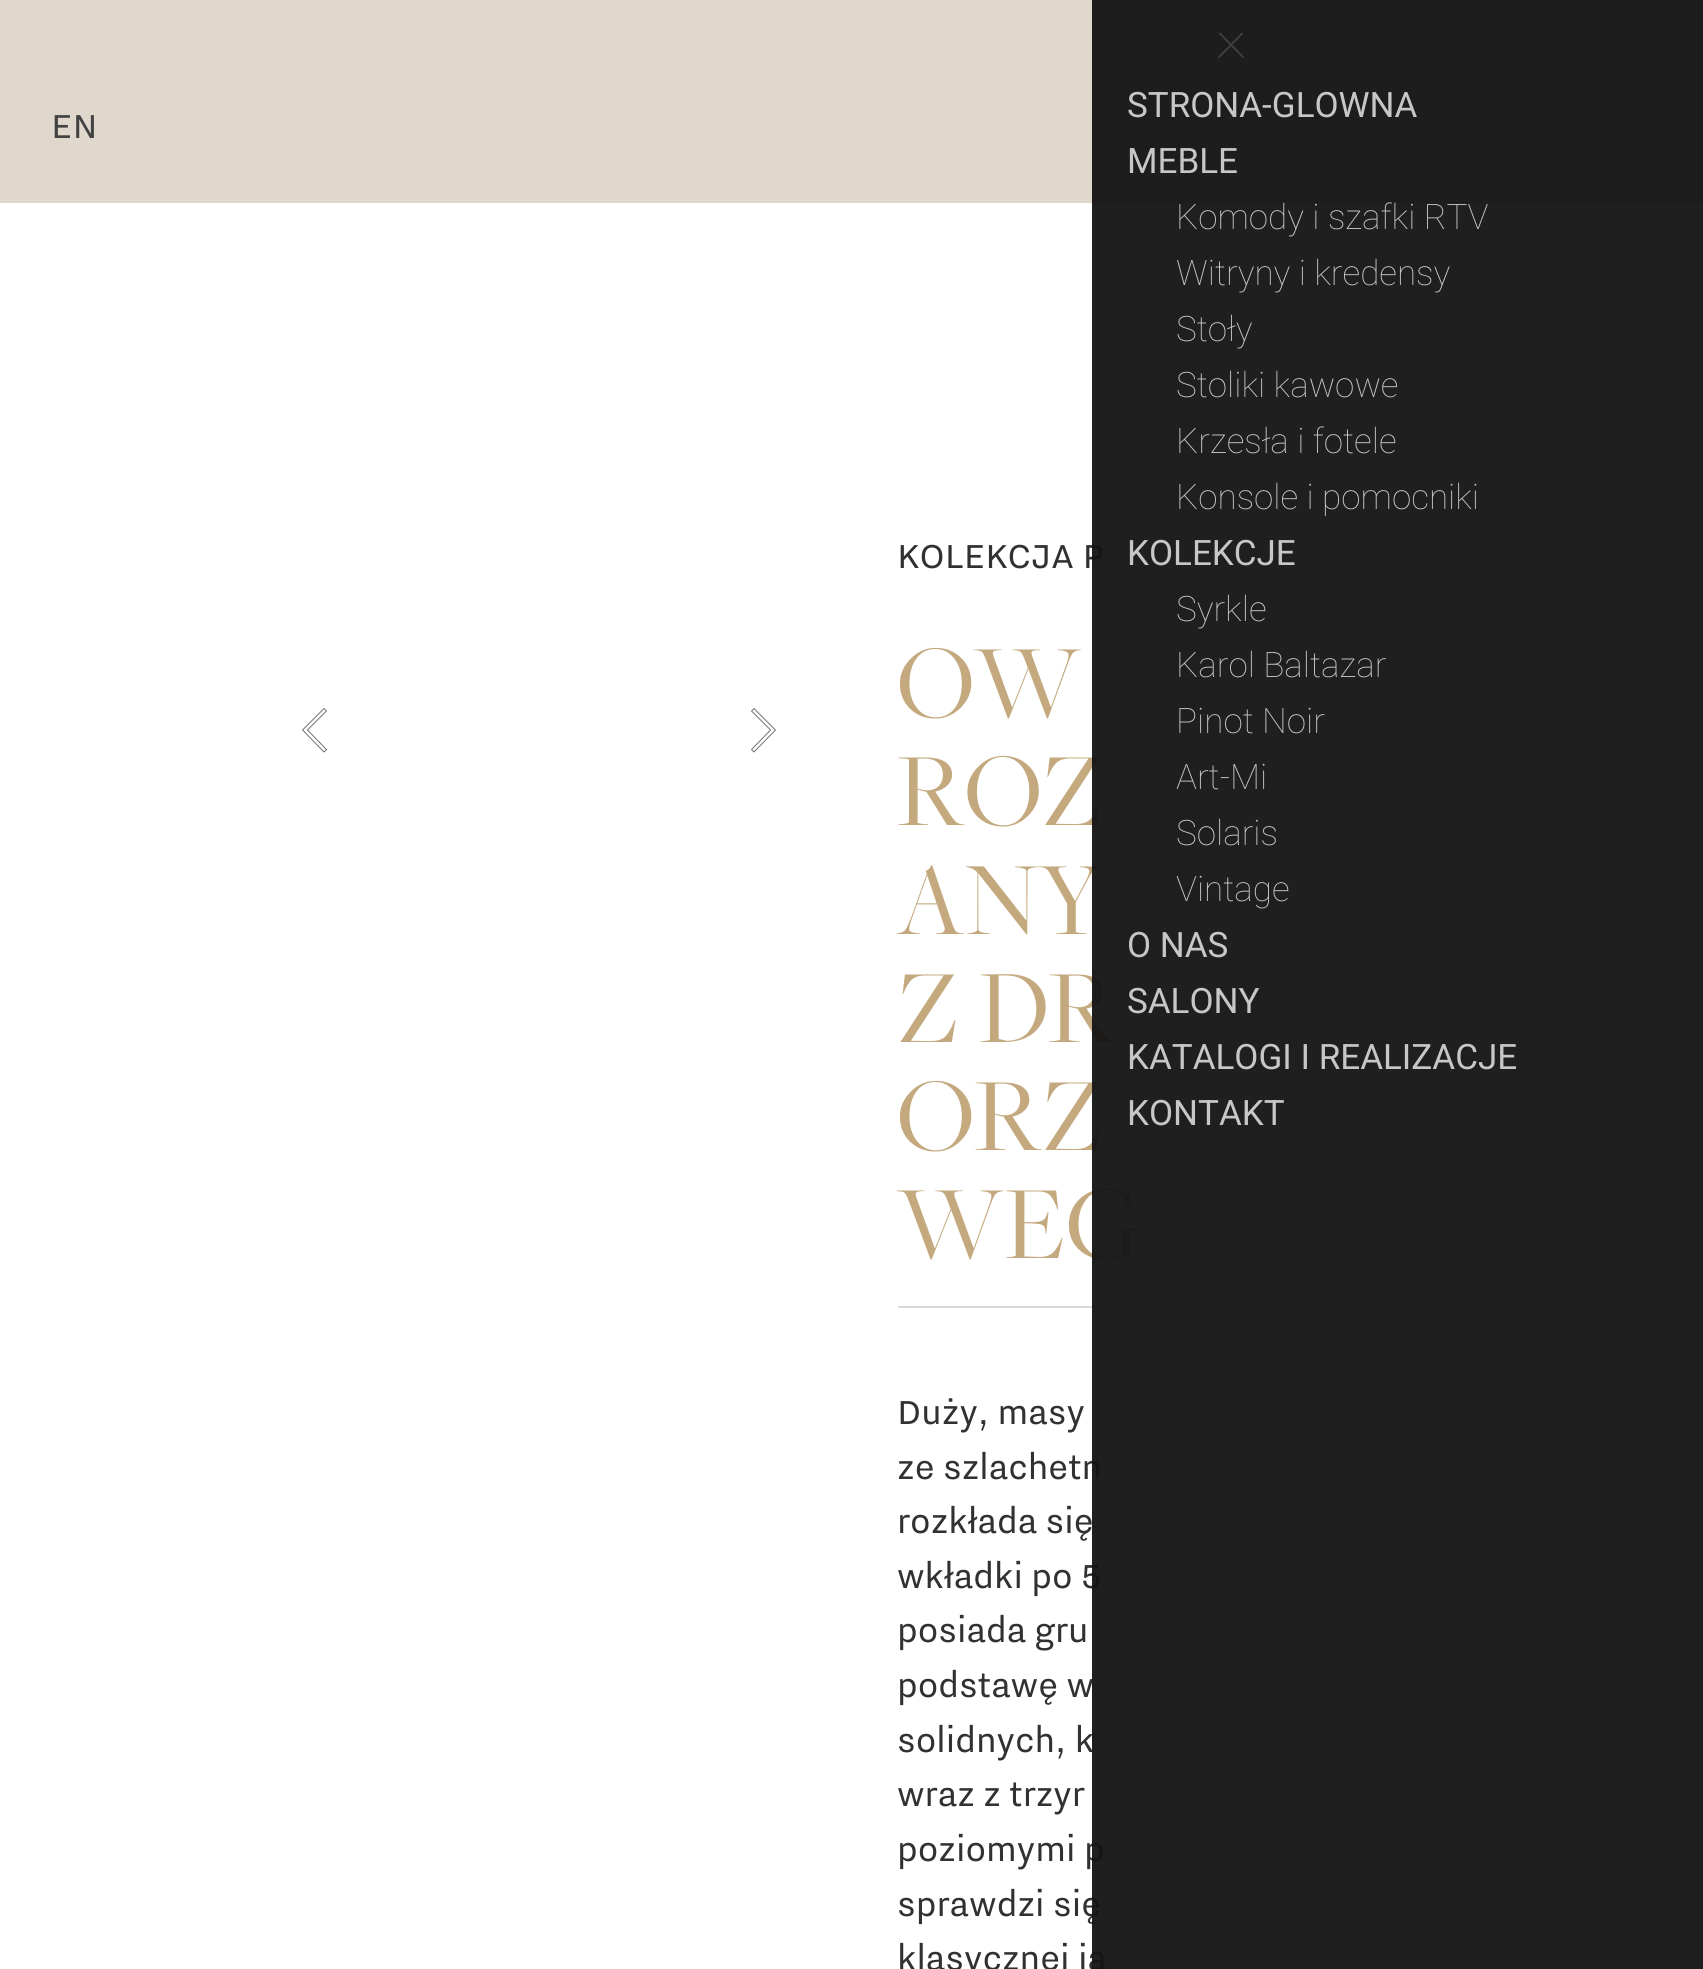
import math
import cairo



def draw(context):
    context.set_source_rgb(1, 1, 1)
    context.paint()
    context.set_source_rgb(225 / 255, 216 / 255, 205 / 255)
    context.rectangle(0, 0, 1703, 203)
    context.fill()
    context.new_path()
    context.move_to(324, 749.5)
    context.line_to(305, 730)
    context.line_to(324, 711)
    context.set_source_rgb(102 / 255, 102 / 255, 102 / 255)
    context.set_line_width(4.4)
    context.set_line_cap(cairo.LineCap.SQUARE)
    context.stroke()
    context.new_path()
    context.move_to(324, 749.5)
    context.line_to(305, 730)
    context.line_to(324, 711)
    context.set_source_rgb(1, 1, 1)
    context.set_line_width(2.6)
    context.stroke()
    context.new_path()
    context.move_to(754, 749.5)
    context.line_to(773, 730)
    context.line_to(754, 711)
    context.set_source_rgb(102 / 255, 102 / 255, 102 / 255)
    context.set_line_width(4.4)
    context.stroke()
    context.new_path()
    context.move_to(754, 749.5)
    context.line_to(773, 730)
    context.line_to(754, 711)
    context.set_source_rgb(1, 1, 1)
    context.set_line_width(2.6)
    context.stroke()
    context.set_source_rgb(217 / 255, 217 / 255, 217 / 255)
    context.rectangle(898, 1306, 537, 2)
    context.fill()
    context.select_font_face("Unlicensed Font")
    context.set_font_size(42)
    context.set_source_rgb(67 / 255, 67 / 255, 67 / 255)
    context.move_to(51, 138)
    context.show_text("EN")
    context.set_source_rgb(49 / 255, 49 / 255, 49 / 255)
    context.move_to(897, 568)
    context.show_text("KOLEKCJA P")
    context.select_font_face("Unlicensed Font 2")
    context.set_font_size(108)
    context.set_source_rgb(196 / 255, 169 / 255, 127 / 255)
    context.move_to(897, 717)
    context.show_text("OW")
    context.move_to(897, 825)
    context.show_text("ROZ")
    context.move_to(897, 934)
    context.show_text("ANY")
    context.move_to(897, 1042)
    context.show_text("Z DR")
    context.move_to(897, 1150)
    context.show_text("ORZ")
    context.move_to(897, 1258)
    context.show_text("WEG")
    context.select_font_face("Unlicensed Font")
    context.set_font_size(42)
    context.set_source_rgb(49 / 255, 49 / 255, 49 / 255)
    context.move_to(897, 1424)
    context.show_text("Duży, masy")
    context.move_to(897, 1479)
    context.show_text("ze szlachetn")
    context.move_to(897, 1533)
    context.show_text("rozkłada się")
    context.move_to(897, 1588)
    context.show_text("wkładki po 5")
    context.move_to(897, 1642)
    context.show_text("posiada gru")
    context.move_to(897, 1697)
    context.show_text("podstawę w")
    context.move_to(897, 1752)
    context.show_text("solidnych, k")
    context.move_to(897, 1806)
    context.show_text("wraz z trzyr")
    context.move_to(897, 1861)
    context.show_text("poziomymi p")
    context.move_to(897, 1916)
    context.show_text("sprawdzi się")
    context.move_to(897, 1970)
    context.show_text("klasycznej ja")
    context.set_source_rgba(20 / 255, 20 / 255, 20 / 255, 0.95)
    context.rectangle(1092, 0, 611, 1969)
    context.fill()
    context.select_font_face("Roboto")
    context.set_font_size(35)
    context.set_source_rgb(199 / 255, 199 / 255, 199 / 255)
    context.move_to(1127, 1125)
    context.show_text("KONTAKT")
    context.move_to(1127, 1069)
    context.show_text("KATALOGI I REALIZACJE")
    context.move_to(1127, 1013)
    context.show_text("SALONY")
    context.move_to(1127, 957)
    context.show_text("O NAS")
    context.select_font_face("Roboto Thin")
    context.move_to(1176, 901)
    context.show_text("Vintage")
    context.move_to(1176, 845)
    context.show_text("Solaris")
    context.move_to(1176, 789)
    context.show_text("Art-Mi")
    context.move_to(1176, 733)
    context.show_text("Pinot Noir")
    context.move_to(1176, 677)
    context.show_text("Karol Baltazar")
    context.move_to(1176, 621)
    context.show_text("Syrkle")
    context.select_font_face("Roboto")
    context.move_to(1127, 565)
    context.show_text("KOLEKCJE")
    context.select_font_face("Roboto Thin")
    context.move_to(1176, 509)
    context.show_text("Konsole i pomocniki")
    context.move_to(1176, 453)
    context.show_text("Krzesła i fotele")
    context.move_to(1176, 397)
    context.show_text("Stoliki kawowe")
    context.move_to(1176, 341)
    context.show_text("Stoły")
    context.move_to(1176, 285)
    context.show_text("Witryny i kredensy")
    context.move_to(1176, 229)
    context.show_text("Komody i szafki RTV")
    context.select_font_face("Roboto")
    context.move_to(1127, 173)
    context.show_text("MEBLE")
    context.move_to(1127, 117)
    context.show_text("STRONA-GLOWNA")
    context.select_font_face("Roboto Thin")
    context.set_font_size(63)
    context.set_source_rgb(67 / 255, 67 / 255, 67 / 255)
    context.move_to(1215, 58)
    context.show_text("×")


surface = cairo.ImageSurface(cairo.Format.RGB24, 1703, 1969)
context = cairo.Context(surface)
options = cairo.FontOptions()
options.set_hint_metrics(cairo.HintMetrics.OFF)
options.set_hint_style(cairo.HintStyle.NONE)
context.set_font_options(options)
context.set_miter_limit(4)
draw(context)
surface.write_to_png("out.png")
